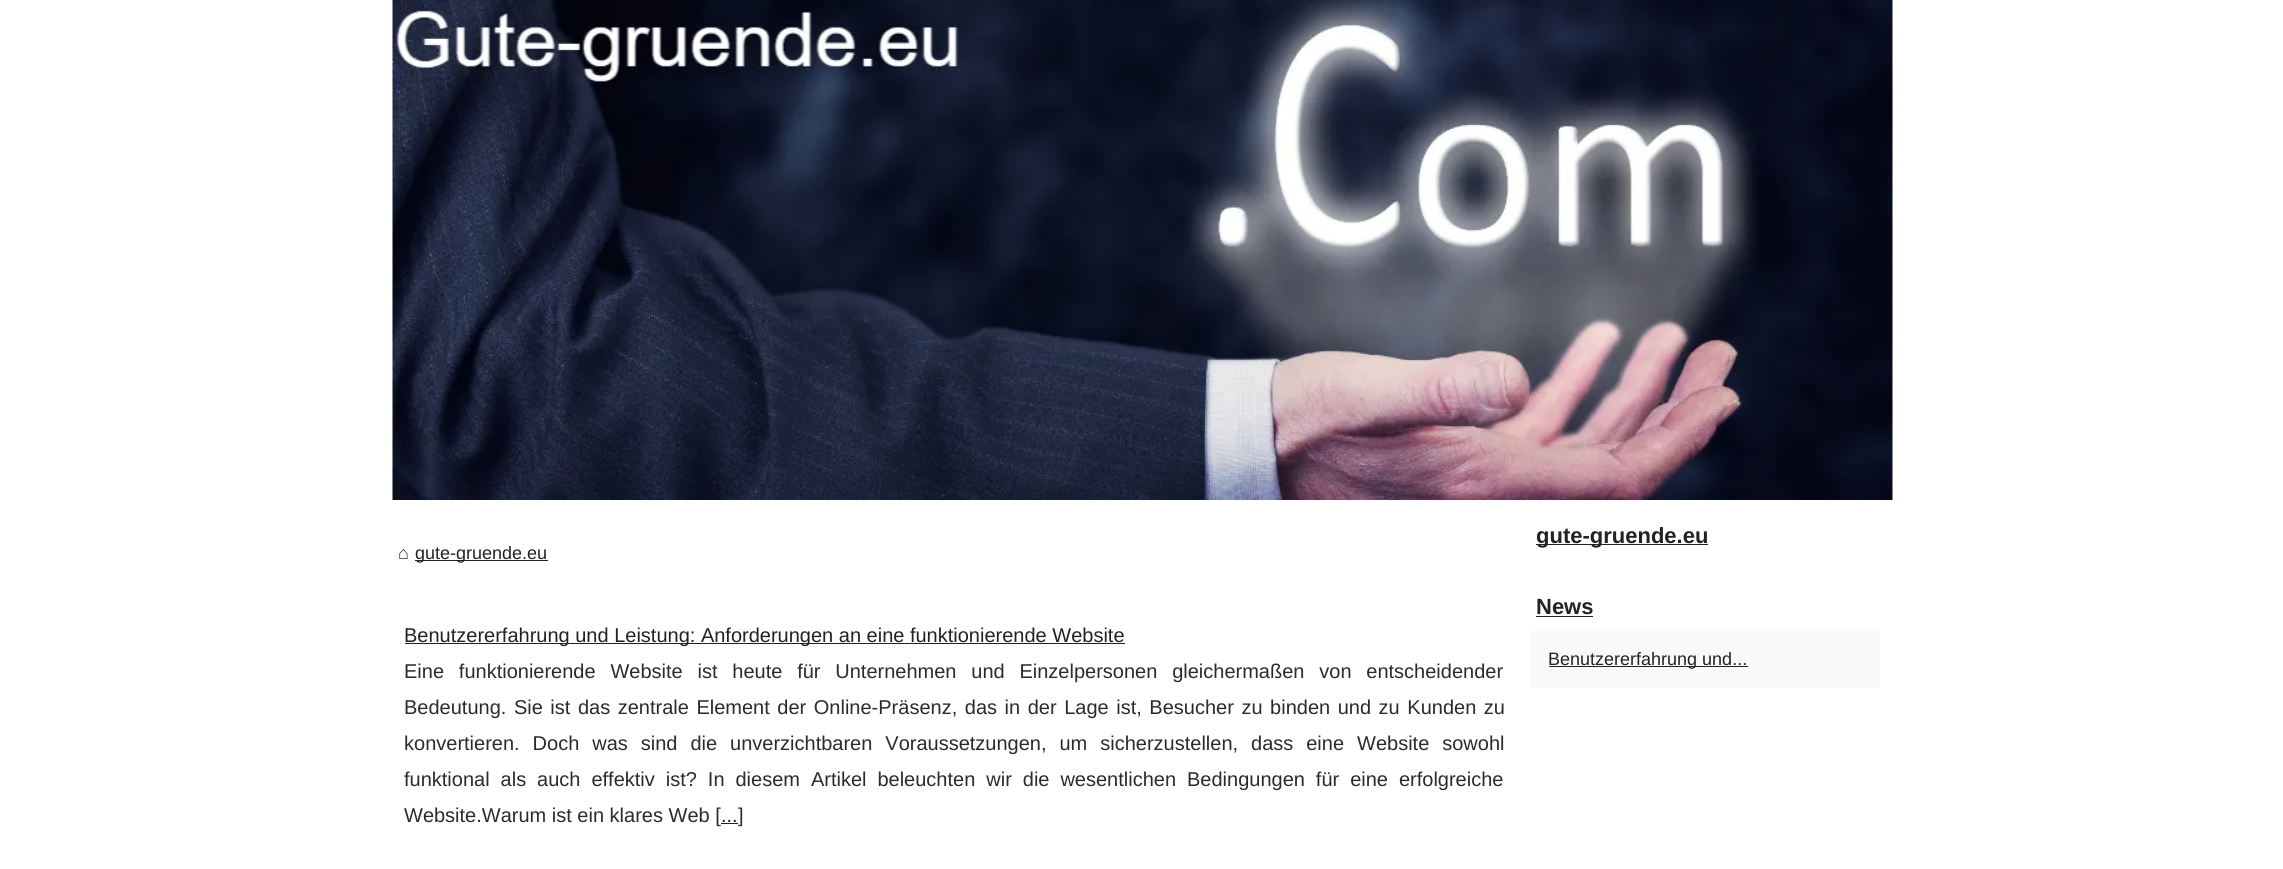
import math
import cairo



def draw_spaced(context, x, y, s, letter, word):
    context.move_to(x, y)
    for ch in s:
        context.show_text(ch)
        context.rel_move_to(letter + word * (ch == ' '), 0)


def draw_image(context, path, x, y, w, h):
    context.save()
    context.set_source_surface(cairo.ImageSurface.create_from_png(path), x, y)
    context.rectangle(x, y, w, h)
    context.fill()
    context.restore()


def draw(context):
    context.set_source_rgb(1, 1, 1)
    context.paint()
    draw_image(context, "images/1.png", 392, 0, 1501, 500)
    context.set_source_rgb(34 / 255, 34 / 255, 34 / 255)
    context.rectangle(415, 560, 133, 1)
    context.fill()
    context.rectangle(405, 643, 720, 1)
    context.fill()
    context.rectangle(721, 823, 17, 1)
    context.fill()
    context.rectangle(1536, 544, 172, 1)
    context.fill()
    context.rectangle(1536, 616, 57, 1)
    context.fill()
    context.set_source_rgb(249 / 255, 249 / 255, 249 / 255)
    context.rectangle(1530, 631, 350, 57)
    context.fill()
    context.set_source_rgb(34 / 255, 34 / 255, 34 / 255)
    context.rectangle(1549, 666, 199, 1)
    context.fill()
    context.select_font_face("Liberation Sans")
    context.set_font_size(18)
    context.set_source_rgb(43 / 255, 43 / 255, 43 / 255)
    context.move_to(398, 559)
    context.show_text("⌂")
    context.set_source_rgb(34 / 255, 34 / 255, 34 / 255)
    context.move_to(415, 559)
    context.show_text("gute-gruende.eu")
    context.set_font_size(20)
    context.move_to(404, 642)
    context.show_text("Benutzererfahrung und Leistung: Anforderungen an eine funktionierende Website")
    context.set_source_rgb(43 / 255, 43 / 255, 43 / 255)
    draw_spaced(context, 404, 678, "Eine funktionierende Website ist heute für Unternehmen und Einzelpersonen gleichermaßen von entscheidender", 0, 9.25)
    draw_spaced(context, 404, 714, "Bedeutung. Sie ist das zentrale Element der Online-Präsenz, das in der Lage ist, Besucher zu binden und zu Kunden zu", 0, 2)
    draw_spaced(context, 404, 750, "konvertieren. Doch was sind die unverzichtbaren Voraussetzungen, um sicherzustellen, dass eine Website sowohl", 0, 7.4)
    draw_spaced(context, 404, 786, "funktional als auch effektiv ist? In diesem Artikel beleuchten wir die wesentlichen Bedingungen für eine erfolgreiche", 0, 5.4)
    context.move_to(404, 822)
    context.show_text("Website.Warum ist ein klares Web [")
    context.set_source_rgb(34 / 255, 34 / 255, 34 / 255)
    context.move_to(721, 822)
    context.show_text("...")
    context.set_source_rgb(43 / 255, 43 / 255, 43 / 255)
    context.move_to(738, 822)
    context.show_text("]")
    context.select_font_face("Liberation Sans", cairo.FontSlant.NORMAL, cairo.FontWeight.BOLD)
    context.set_font_size(22)
    context.set_source_rgb(34 / 255, 34 / 255, 34 / 255)
    context.move_to(1536, 543)
    context.show_text("gute-gruende.eu")
    context.move_to(1536, 614)
    context.show_text("News")
    context.select_font_face("Liberation Sans")
    context.set_font_size(18)
    context.move_to(1548, 665)
    context.show_text("Benutzererfahrung und...")


surface = cairo.ImageSurface(cairo.Format.RGB24, 2283, 869)
context = cairo.Context(surface)
options = cairo.FontOptions()
options.set_hint_metrics(cairo.HintMetrics.OFF)
options.set_hint_style(cairo.HintStyle.NONE)
context.set_font_options(options)
context.set_miter_limit(4)
draw(context)
surface.write_to_png("out.png")
